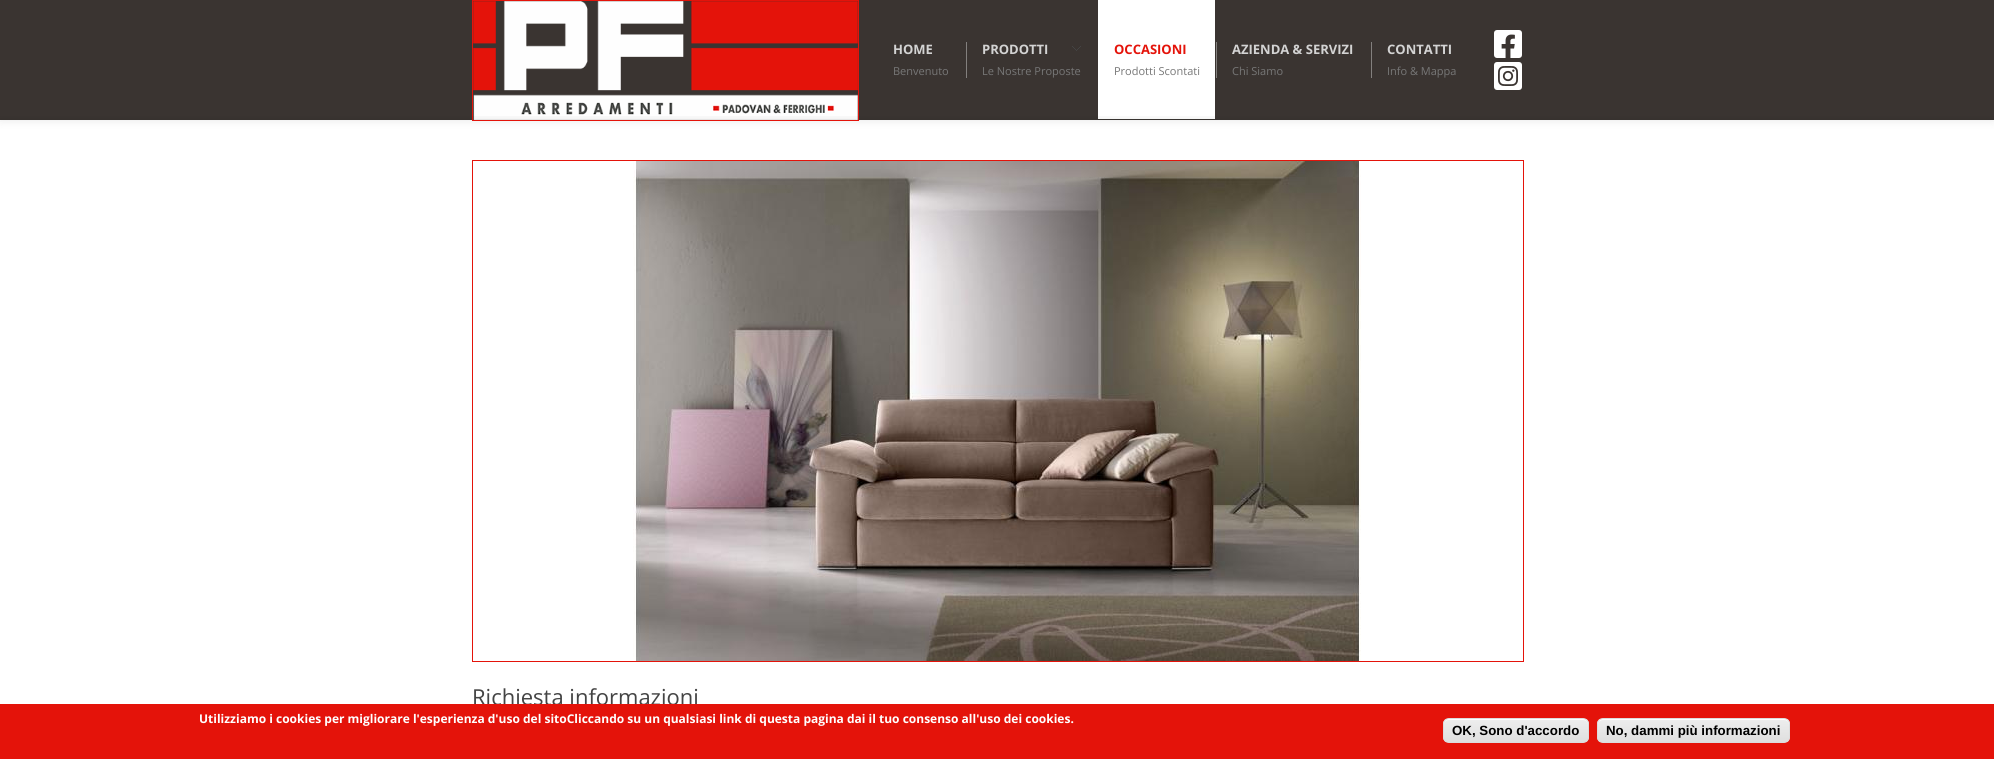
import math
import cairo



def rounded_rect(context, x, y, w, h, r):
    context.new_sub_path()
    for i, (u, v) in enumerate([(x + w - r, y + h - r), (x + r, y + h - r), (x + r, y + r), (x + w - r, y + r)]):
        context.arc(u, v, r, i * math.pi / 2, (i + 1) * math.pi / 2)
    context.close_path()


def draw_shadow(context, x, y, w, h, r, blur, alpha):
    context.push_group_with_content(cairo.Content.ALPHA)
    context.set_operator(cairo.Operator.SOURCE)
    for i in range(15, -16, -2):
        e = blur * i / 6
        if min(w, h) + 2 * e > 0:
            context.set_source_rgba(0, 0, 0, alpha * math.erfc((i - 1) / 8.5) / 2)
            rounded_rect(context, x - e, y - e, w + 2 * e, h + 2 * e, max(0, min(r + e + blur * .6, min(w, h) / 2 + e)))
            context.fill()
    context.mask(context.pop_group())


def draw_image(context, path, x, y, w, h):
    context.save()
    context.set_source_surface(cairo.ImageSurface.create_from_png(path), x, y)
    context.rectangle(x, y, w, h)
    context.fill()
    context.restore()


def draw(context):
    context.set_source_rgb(1, 1, 1)
    context.paint()
    context.set_source_rgb(0, 0, 0)
    draw_shadow(context, 0, 0, 1994, 120, 0, 5, 0.1)
    context.set_source_rgb(58 / 255, 52 / 255, 49 / 255)
    context.rectangle(0, 0, 1994, 120)
    context.fill()
    context.rectangle(472.5, 0.5, 386, 120)
    context.set_source_rgb(228 / 255, 19 / 255, 10 / 255)
    context.set_line_width(1)
    context.stroke()
    draw_image(context, "images/1.png", 473, 1, 385, 119)
    context.set_source_rgb(131 / 255, 128 / 255, 126 / 255)
    context.rectangle(966, 42, 1, 36)
    context.fill()
    draw_image(context, "images/2.png", 1072, 46, 9, 5)
    context.set_source_rgb(1, 1, 1)
    context.rectangle(1098, 0, 117, 119)
    context.fill()
    context.set_source_rgb(131 / 255, 128 / 255, 126 / 255)
    context.rectangle(1216, 42, 1, 36)
    context.fill()
    context.rectangle(1371, 42, 1, 36)
    context.fill()
    draw_image(context, "images/3.png", 1494, 30, 28, 28)
    draw_image(context, "images/4.png", 1494, 62, 28, 28)
    context.save()
    context.rectangle(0, 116, 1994, 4)
    context.clip()
    context.set_source_rgb(0, 0, 0)
    draw_shadow(context, 0, 120, 1994, 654, 0, 5, 0.1)
    context.restore()
    context.rectangle(472.5, 160.5, 1051, 501)
    context.set_source_rgb(228 / 255, 19 / 255, 10 / 255)
    context.stroke()
    draw_image(context, "images/5.png", 633, 161, 728, 500)
    context.select_font_face("Open Sans", cairo.FontSlant.NORMAL, cairo.FontWeight.BOLD)
    context.set_font_size(13)
    context.set_source_rgb(211 / 255, 211 / 255, 211 / 255)
    context.move_to(893, 54)
    context.show_text("HOME")
    context.select_font_face("Open Sans")
    context.set_font_size(11)
    context.set_source_rgb(119 / 255, 119 / 255, 119 / 255)
    context.move_to(893, 75)
    context.show_text("Benvenuto")
    context.select_font_face("Open Sans", cairo.FontSlant.NORMAL, cairo.FontWeight.BOLD)
    context.set_font_size(13)
    context.set_source_rgb(211 / 255, 211 / 255, 211 / 255)
    context.move_to(982, 54)
    context.show_text("PRODOTTI")
    context.select_font_face("Open Sans")
    context.set_font_size(11)
    context.set_source_rgb(119 / 255, 119 / 255, 119 / 255)
    context.move_to(982, 75)
    context.show_text("Le Nostre Proposte")
    context.select_font_face("Open Sans", cairo.FontSlant.NORMAL, cairo.FontWeight.BOLD)
    context.set_font_size(13)
    context.set_source_rgb(228 / 255, 19 / 255, 10 / 255)
    context.move_to(1114, 54)
    context.show_text("OCCASIONI")
    context.select_font_face("Open Sans")
    context.set_font_size(11)
    context.set_source_rgb(119 / 255, 119 / 255, 119 / 255)
    context.move_to(1114, 75)
    context.show_text("Prodotti Scontati")
    context.select_font_face("Open Sans", cairo.FontSlant.NORMAL, cairo.FontWeight.BOLD)
    context.set_font_size(13)
    context.set_source_rgb(211 / 255, 211 / 255, 211 / 255)
    context.move_to(1232, 54)
    context.show_text("AZIENDA & SERVIZI")
    context.select_font_face("Open Sans")
    context.set_font_size(11)
    context.set_source_rgb(119 / 255, 119 / 255, 119 / 255)
    context.move_to(1232, 75)
    context.show_text("Chi Siamo")
    context.select_font_face("Open Sans", cairo.FontSlant.NORMAL, cairo.FontWeight.BOLD)
    context.set_font_size(13)
    context.set_source_rgb(211 / 255, 211 / 255, 211 / 255)
    context.move_to(1387, 54)
    context.show_text("CONTATTI")
    context.select_font_face("Open Sans")
    context.set_font_size(11)
    context.set_source_rgb(119 / 255, 119 / 255, 119 / 255)
    context.move_to(1387, 75)
    context.show_text("Info & Mappa")
    context.set_font_size(22)
    context.set_source_rgb(68 / 255, 68 / 255, 68 / 255)
    context.move_to(472, 705)
    context.show_text("Richiesta informazioni")
    context.set_source_rgb(228 / 255, 19 / 255, 10 / 255)
    context.rectangle(0, 704, 1994, 55)
    context.fill()
    context.select_font_face("Open Sans", cairo.FontSlant.NORMAL, cairo.FontWeight.BOLD)
    context.set_font_size(12)
    context.set_source_rgb(1, 1, 1)
    context.move_to(199, 723)
    context.show_text("Utilizziamo i cookies per migliorare l'esperienza d'uso del sitoCliccando su un qualsiasi link di questa pagina dai il tuo consenso all'uso dei cookies.")
    context.save()
    rounded_rect(context, 1443, 718, 146, 25, 6)
    context.clip()
    gradient = cairo.LinearGradient(1516, 719, 1516, 742)
    gradient.add_color_stop_rgba(0.05, 237 / 255, 237 / 255, 237 / 255, 1)
    gradient.add_color_stop_rgba(1, 223 / 255, 223 / 255, 223 / 255, 1)
    context.set_source(gradient)
    context.rectangle(1443, 719, 146, 23)
    context.fill()
    context.restore()
    context.new_path()
    context.move_to(1449, 720)
    context.line_to(1583, 720)
    context.curve_to(1586, 720, 1588, 722, 1588, 725)
    context.line_to(1588, 724)
    context.curve_to(1588, 721, 1586, 719, 1583, 719)
    context.line_to(1449, 719)
    context.curve_to(1446, 719, 1444, 721, 1444, 724)
    context.line_to(1444, 725)
    context.curve_to(1444, 722, 1446, 720, 1449, 720)
    context.close_path()
    context.fill()
    rounded_rect(context, 1443.5, 718.5, 145, 24, 5.5)
    context.set_source_rgb(220 / 255, 220 / 255, 220 / 255)
    context.stroke()
    context.select_font_face("Liberation Sans", cairo.FontSlant.NORMAL, cairo.FontWeight.BOLD)
    context.set_font_size(13.3)
    context.set_source_rgb(0, 0, 0)
    context.move_to(1452, 735)
    context.show_text("OK, Sono d'accordo")
    context.save()
    rounded_rect(context, 1597, 718, 193, 25, 6)
    context.clip()
    gradient = cairo.LinearGradient(1694, 719, 1694, 742)
    gradient.add_color_stop_rgba(0.05, 237 / 255, 237 / 255, 237 / 255, 1)
    gradient.add_color_stop_rgba(1, 223 / 255, 223 / 255, 223 / 255, 1)
    context.set_source(gradient)
    context.rectangle(1597, 719, 193, 23)
    context.fill()
    context.restore()
    context.set_source_rgb(1, 1, 1)
    context.new_path()
    context.move_to(1603, 720)
    context.line_to(1784, 720)
    context.curve_to(1787, 720, 1789, 722, 1789, 725)
    context.line_to(1789, 724)
    context.curve_to(1789, 721, 1787, 719, 1784, 719)
    context.line_to(1603, 719)
    context.curve_to(1600, 719, 1598, 721, 1598, 724)
    context.line_to(1598, 725)
    context.curve_to(1598, 722, 1600, 720, 1603, 720)
    context.close_path()
    context.fill()
    rounded_rect(context, 1597.5, 718.5, 192, 24, 5.5)
    context.set_source_rgb(220 / 255, 220 / 255, 220 / 255)
    context.stroke()
    context.set_source_rgb(0, 0, 0)
    context.move_to(1606, 735)
    context.show_text("No, dammi più informazioni")


surface = cairo.ImageSurface(cairo.Format.RGB24, 1994, 759)
context = cairo.Context(surface)
options = cairo.FontOptions()
options.set_hint_metrics(cairo.HintMetrics.OFF)
options.set_hint_style(cairo.HintStyle.NONE)
context.set_font_options(options)
context.set_miter_limit(4)
draw(context)
surface.write_to_png("out.png")
